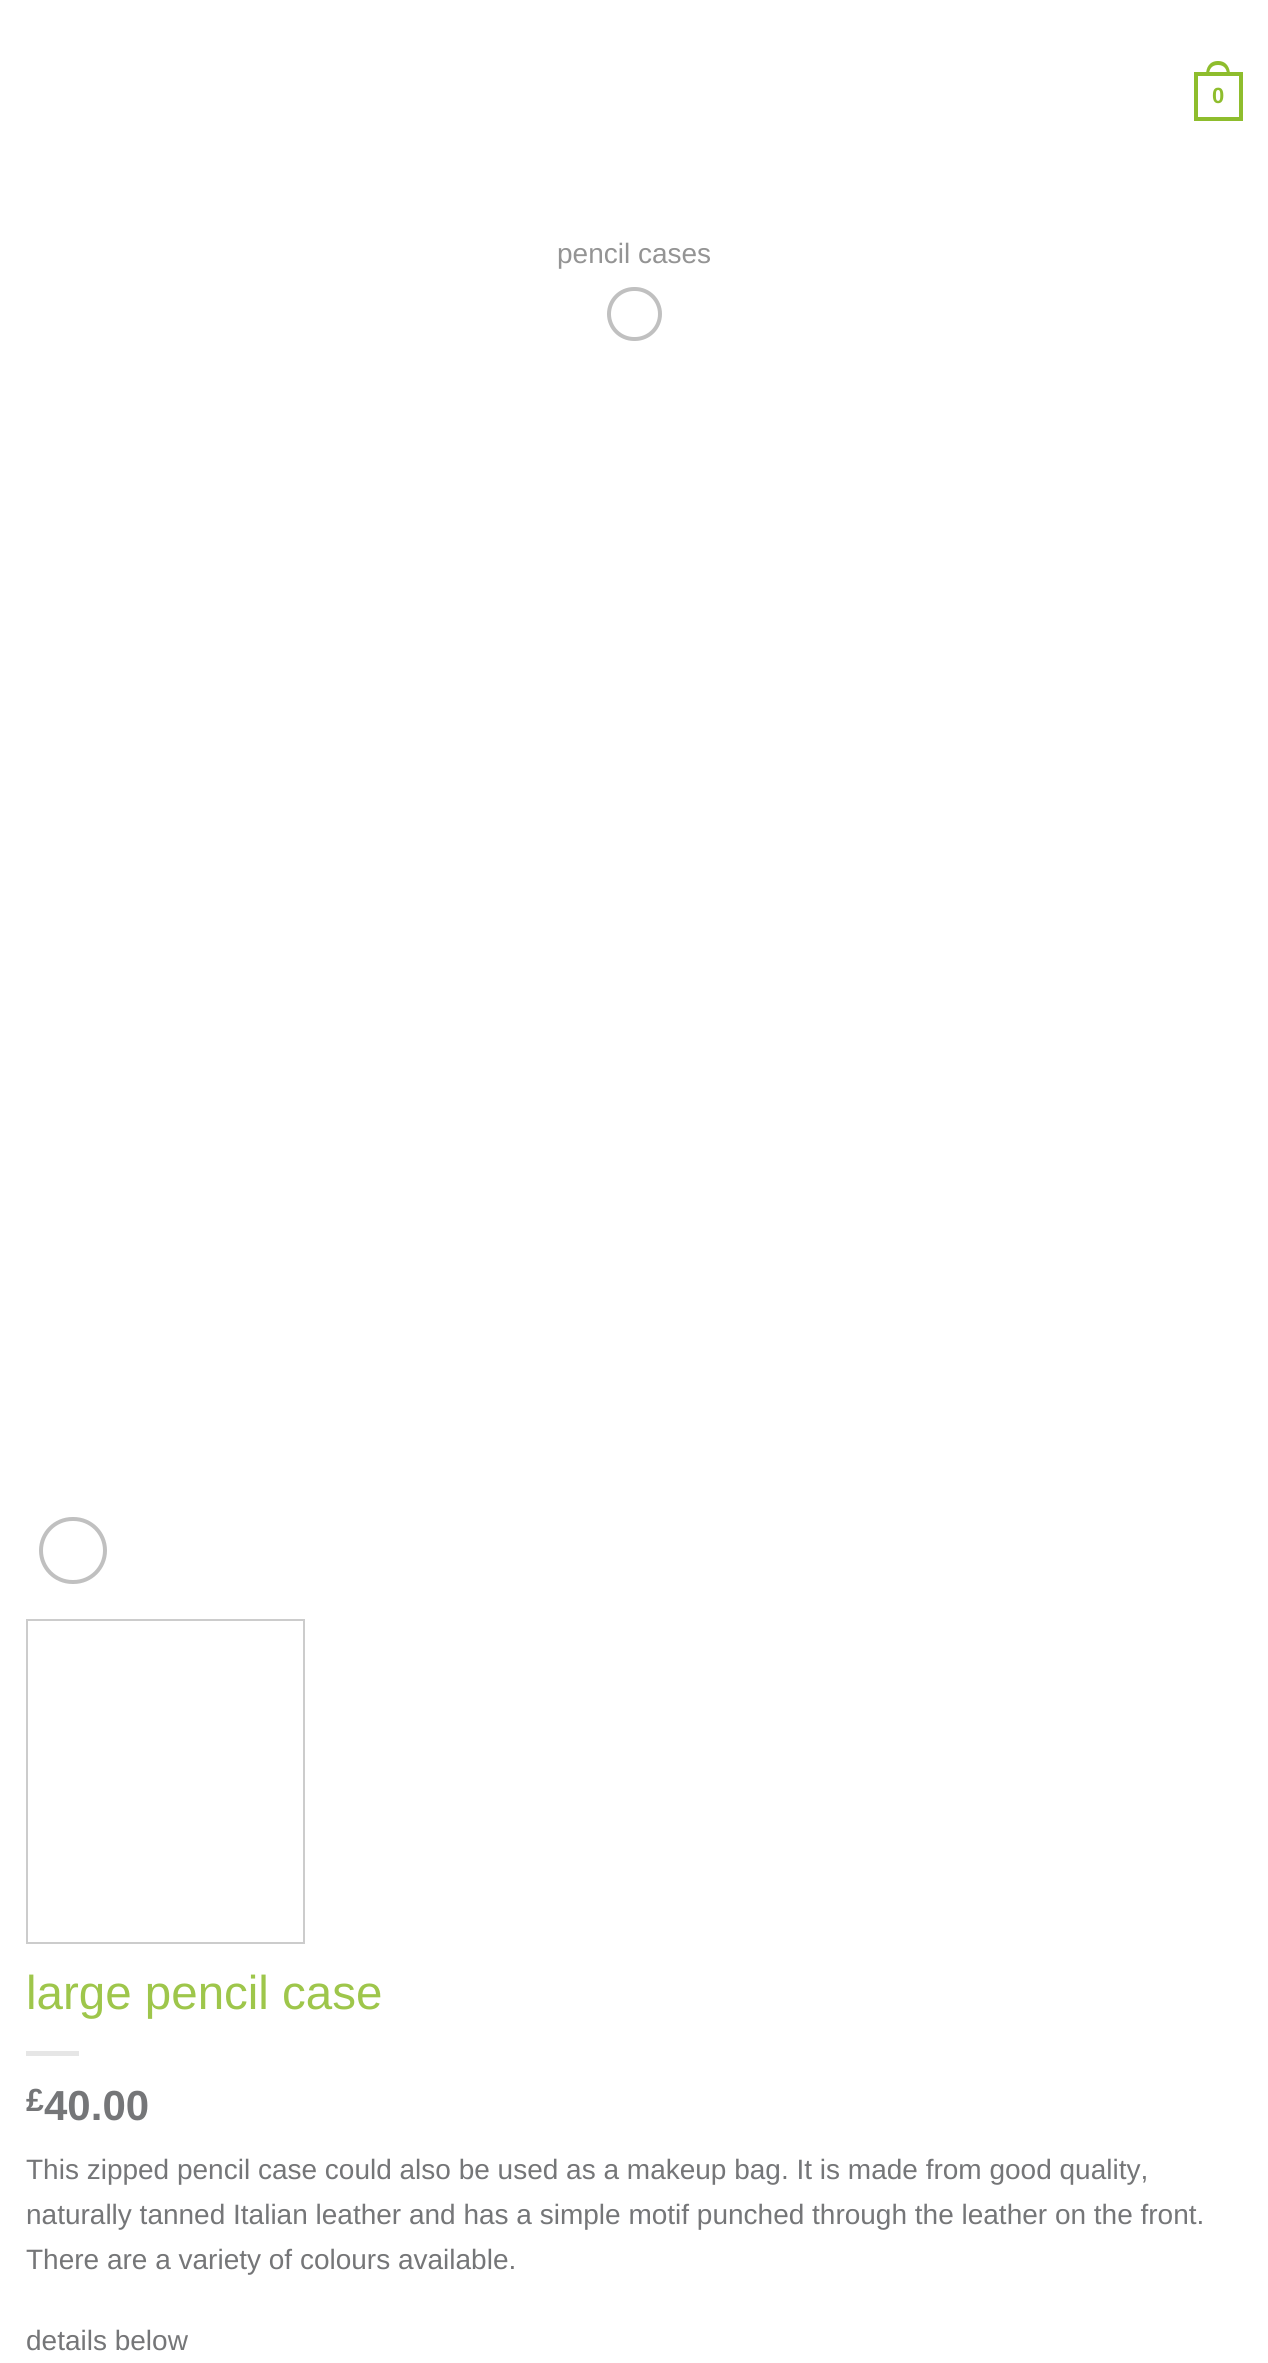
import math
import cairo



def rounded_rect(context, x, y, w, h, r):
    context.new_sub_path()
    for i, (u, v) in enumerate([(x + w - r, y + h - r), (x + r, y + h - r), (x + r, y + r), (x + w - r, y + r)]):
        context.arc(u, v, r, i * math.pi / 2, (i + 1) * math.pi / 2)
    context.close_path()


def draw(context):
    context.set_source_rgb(1, 1, 1)
    context.paint()
    context.rectangle(1196, 74, 45, 45)
    context.set_source_rgb(142 / 255, 189 / 255, 45 / 255)
    context.set_line_width(4)
    context.stroke()
    context.set_fill_rule(cairo.FillRule.EVEN_ODD)
    context.new_path()
    context.move_to(1218, 61)
    context.curve_to(1226.5, 61, 1230, 67.5, 1230, 75)
    context.line_to(1206, 75)
    context.curve_to(1206, 67.5, 1209.5, 61, 1218, 61)
    context.close_path()
    context.move_to(1218, 65)
    context.curve_to(1224.5, 65, 1227, 69.5, 1227, 75)
    context.line_to(1209, 75)
    context.curve_to(1209, 69.5, 1211.5, 65, 1218, 65)
    context.close_path()
    context.fill()
    rounded_rect(context, 609, 289, 51, 50, 25)
    context.set_source_rgb(192 / 255, 192 / 255, 192 / 255)
    context.stroke()
    rounded_rect(context, 41, 1519, 64, 63, 31.5)
    context.stroke()
    context.rectangle(27, 1620, 277, 323)
    context.set_source_rgb(204 / 255, 204 / 255, 204 / 255)
    context.set_line_width(2)
    context.stroke()
    context.set_source_rgb(230 / 255, 230 / 255, 230 / 255)
    context.rectangle(26, 2051, 53, 5)
    context.fill()
    context.select_font_face("Liberation Sans", cairo.FontSlant.NORMAL, cairo.FontWeight.BOLD)
    context.set_font_size(22)
    context.set_source_rgb(142 / 255, 189 / 255, 45 / 255)
    context.move_to(1212, 103)
    context.show_text("0")
    context.select_font_face("Liberation Sans")
    context.set_font_size(28)
    context.set_source_rgb(148 / 255, 148 / 255, 148 / 255)
    context.move_to(557, 263)
    context.show_text("pencil cases")
    context.set_font_size(47.5)
    context.set_source_rgb(158 / 255, 198 / 255, 75 / 255)
    context.move_to(26, 2009)
    context.show_text("large pencil case")
    context.select_font_face("Liberation Sans", cairo.FontSlant.NORMAL, cairo.FontWeight.BOLD)
    context.set_font_size(32)
    context.set_source_rgb(117 / 255, 118 / 255, 120 / 255)
    context.move_to(26, 2111)
    context.show_text("£")
    context.set_font_size(42)
    context.move_to(44, 2120)
    context.show_text("40.00")
    context.select_font_face("Liberation Sans")
    context.set_font_size(28)
    context.move_to(26, 2179)
    context.show_text("This zipped pencil case could also be used as a makeup bag. It is made from good quality,")
    context.move_to(26, 2224)
    context.show_text("naturally tanned Italian leather and has a simple motif punched through the leather on the front.")
    context.move_to(26, 2269)
    context.show_text("There are a variety of colours available.")
    context.move_to(26, 2350)
    context.show_text("details below")


surface = cairo.ImageSurface(cairo.Format.RGB24, 1268, 2363)
context = cairo.Context(surface)
options = cairo.FontOptions()
options.set_hint_metrics(cairo.HintMetrics.OFF)
options.set_hint_style(cairo.HintStyle.NONE)
context.set_font_options(options)
context.set_miter_limit(4)
draw(context)
surface.write_to_png("out.png")
